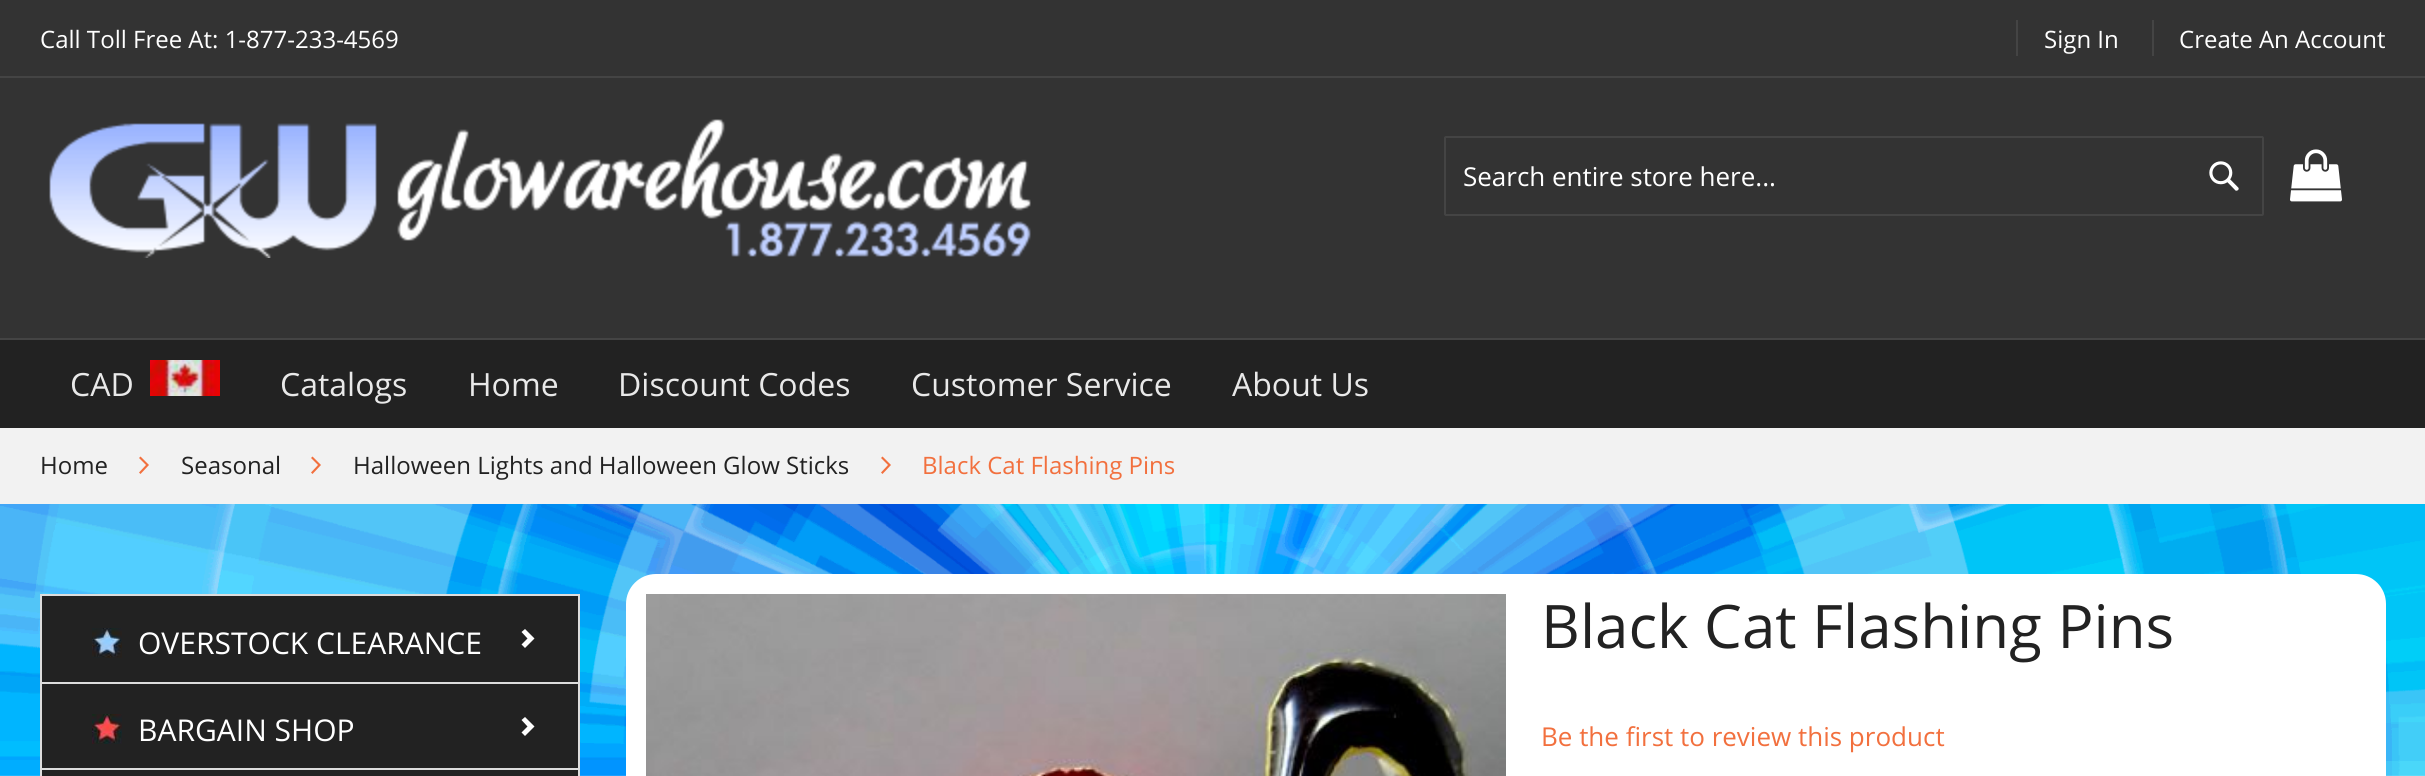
import math
import cairo



def rounded_rect(context, x, y, w, h, r):
    context.new_sub_path()
    for i, (u, v) in enumerate([(x + w - r, y + h - r), (x + r, y + h - r), (x + r, y + r), (x + w - r, y + r)]):
        context.arc(u, v, r, i * math.pi / 2, (i + 1) * math.pi / 2)
    context.close_path()


def draw_image(context, path, x, y, w, h):
    context.save()
    context.set_source_surface(cairo.ImageSurface.create_from_png(path), x, y)
    context.rectangle(x, y, w, h)
    context.fill()
    context.restore()


def draw(context):
    context.set_source_rgb(1, 1, 1)
    context.paint()
    draw_image(context, "images/1.png", 0, 504, 2425, 272)
    context.set_source_rgb(51 / 255, 51 / 255, 51 / 255)
    context.rectangle(0, 0, 2425, 338)
    context.fill()
    context.set_source_rgb(68 / 255, 68 / 255, 68 / 255)
    context.rectangle(0, 76, 2425, 2)
    context.fill()
    context.rectangle(2016, 20, 2, 36)
    context.fill()
    context.rectangle(2152, 20, 2, 36)
    context.fill()
    draw_image(context, "images/2.png", 49, 119, 982, 139)
    rounded_rect(context, 1445, 137, 818, 78, 1)
    context.stroke()
    draw_image(context, "images/3.png", 2209, 161, 30, 30)
    draw_image(context, "images/4.png", 2290, 149, 52, 53)
    context.set_source_rgb(34 / 255, 34 / 255, 34 / 255)
    context.rectangle(0, 340, 2425, 88)
    context.fill()
    context.set_source_rgb(68 / 255, 68 / 255, 68 / 255)
    context.rectangle(0, 338, 2425, 2)
    context.fill()
    draw_image(context, "images/5.png", 150, 360, 70, 36)
    context.set_source_rgb(242 / 255, 242 / 255, 242 / 255)
    context.rectangle(0, 428, 2425, 76)
    context.fill()
    context.set_source_rgb(242 / 255, 112 / 255, 62 / 255)
    context.new_path()
    context.move_to(149, 465)
    context.line_to(140.5, 456.5)
    context.line_to(139, 458)
    context.line_to(146, 465)
    context.line_to(139, 472.5)
    context.line_to(140.5, 474)
    context.close_path()
    context.fill()
    context.new_path()
    context.move_to(321, 465)
    context.line_to(312.5, 456.5)
    context.line_to(311, 458)
    context.line_to(318, 465)
    context.line_to(311, 472.5)
    context.line_to(312.5, 474)
    context.close_path()
    context.fill()
    context.new_path()
    context.move_to(891, 465)
    context.line_to(882.5, 456.5)
    context.line_to(881, 458)
    context.line_to(888, 465)
    context.line_to(881, 472.5)
    context.line_to(882.5, 474)
    context.close_path()
    context.fill()
    context.set_source_rgb(221 / 255, 221 / 255, 221 / 255)
    context.rectangle(40, 594, 540, 2)
    context.fill()
    context.set_source_rgb(34 / 255, 34 / 255, 34 / 255)
    context.rectangle(42, 596, 536, 86)
    context.fill()
    context.set_source_rgb(221 / 255, 221 / 255, 221 / 255)
    context.rectangle(578, 596, 2, 174)
    context.fill()
    context.rectangle(40, 682, 540, 2)
    context.fill()
    context.rectangle(40, 596, 2, 88)
    context.fill()
    draw_image(context, "images/6.png", 92, 628, 30, 30)
    context.set_source_rgb(1, 1, 1)
    context.new_path()
    context.move_to(534.5, 638.5)
    context.line_to(525, 648)
    context.line_to(521.5, 644.5)
    context.line_to(527.5, 638.5)
    context.line_to(521.5, 632)
    context.line_to(525, 629)
    context.close_path()
    context.fill()
    context.set_source_rgb(34 / 255, 34 / 255, 34 / 255)
    context.rectangle(42, 684, 536, 84)
    context.fill()
    context.set_source_rgb(221 / 255, 221 / 255, 221 / 255)
    context.rectangle(40, 768, 540, 2)
    context.fill()
    context.rectangle(40, 684, 2, 86)
    context.fill()
    draw_image(context, "images/7.png", 92, 714, 30, 30)
    context.set_source_rgb(1, 1, 1)
    context.new_path()
    context.move_to(534.5, 726.5)
    context.line_to(525, 736)
    context.line_to(521.5, 732.5)
    context.line_to(527.5, 726.5)
    context.line_to(521.5, 720)
    context.line_to(525, 717)
    context.close_path()
    context.fill()
    context.set_source_rgb(34 / 255, 34 / 255, 34 / 255)
    context.rectangle(40, 770, 540, 6)
    context.fill()
    context.set_source_rgb(221 / 255, 221 / 255, 221 / 255)
    context.rectangle(578, 770, 2, 6)
    context.fill()
    context.rectangle(40, 770, 2, 6)
    context.fill()
    context.set_source_rgb(1, 1, 1)
    rounded_rect(context, 626, 574, 1760, 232, 30)
    context.fill()
    draw_image(context, "images/8.png", 646, 594, 860, 182)
    context.select_font_face("Open Sans")
    context.set_font_size(24)
    context.move_to(40, 48)
    context.show_text("Call Toll Free At: 1-877-233-4569")
    context.move_to(2044, 48)
    context.show_text("Sign In")
    context.move_to(2179, 48)
    context.show_text("Create An Account")
    context.set_font_size(26)
    context.move_to(1463, 186)
    context.show_text("Search entire store here...")
    context.set_font_size(32)
    context.set_source_rgb(233 / 255, 233 / 255, 233 / 255)
    context.move_to(70, 396)
    context.show_text("CAD")
    context.move_to(280, 396)
    context.show_text("Catalogs")
    context.move_to(468, 396)
    context.show_text("Home")
    context.move_to(618, 396)
    context.show_text("Discount Codes")
    context.move_to(911, 396)
    context.show_text("Customer Service")
    context.move_to(1232, 396)
    context.show_text("About Us")
    context.set_font_size(24)
    context.set_source_rgb(34 / 255, 34 / 255, 34 / 255)
    context.move_to(40, 474)
    context.show_text("Home")
    context.move_to(181, 474)
    context.show_text("Seasonal")
    context.move_to(353, 474)
    context.show_text("Halloween Lights and Halloween Glow Sticks")
    context.set_source_rgb(242 / 255, 112 / 255, 62 / 255)
    context.move_to(922, 474)
    context.show_text("Black Cat Flashing Pins")
    context.set_font_size(30)
    context.set_source_rgb(1, 1, 1)
    context.move_to(138, 654)
    context.show_text("OVERSTOCK CLEARANCE")
    context.move_to(138, 741)
    context.show_text("BARGAIN SHOP")
    context.set_font_size(60)
    context.set_source_rgb(34 / 255, 34 / 255, 34 / 255)
    context.move_to(1541, 648)
    context.show_text("Black Cat Flashing Pins")
    context.set_font_size(26)
    context.set_source_rgb(242 / 255, 112 / 255, 62 / 255)
    context.move_to(1541, 746)
    context.show_text("Be the first to review this product")


surface = cairo.ImageSurface(cairo.Format.RGB24, 2425, 776)
context = cairo.Context(surface)
options = cairo.FontOptions()
options.set_hint_metrics(cairo.HintMetrics.OFF)
options.set_hint_style(cairo.HintStyle.NONE)
context.set_font_options(options)
context.set_miter_limit(4)
draw(context)
surface.write_to_png("out.png")
